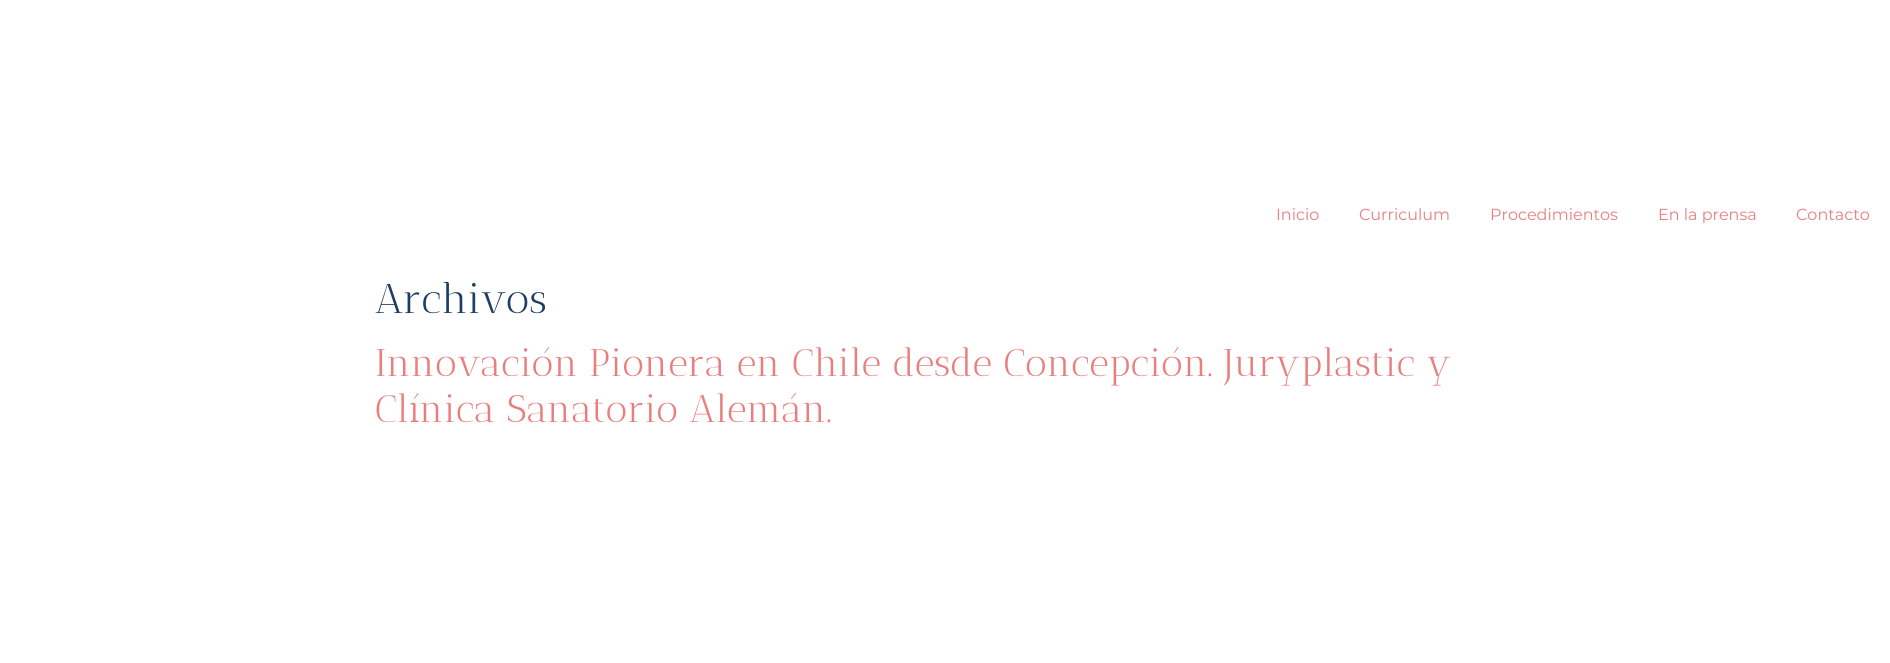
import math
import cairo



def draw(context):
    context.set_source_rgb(1, 1, 1)
    context.paint()
    context.select_font_face("Montserrat")
    context.set_font_size(16)
    context.set_source_rgb(232 / 255, 127 / 255, 126 / 255)
    context.move_to(1276, 220)
    context.show_text("Inicio")
    context.move_to(1359, 220)
    context.show_text("Curriculum")
    context.move_to(1490, 220)
    context.show_text("Procedimientos")
    context.move_to(1658, 220)
    context.show_text("En la prensa")
    context.move_to(1796, 220)
    context.show_text("Contacto")
    context.select_font_face("Antic Didone")
    context.set_font_size(41.5)
    context.set_source_rgb(30 / 255, 61 / 255, 100 / 255)
    context.move_to(375, 313)
    context.show_text("Archivos")
    context.set_font_size(38.4)
    context.set_source_rgb(232 / 255, 127 / 255, 126 / 255)
    context.move_to(375, 376)
    context.show_text("Innovación Pionera en Chile desde Concepción. Juryplastic y")
    context.move_to(375, 422)
    context.show_text("Clínica Sanatorio Alemán.")


surface = cairo.ImageSurface(cairo.Format.RGB24, 1890, 663)
context = cairo.Context(surface)
options = cairo.FontOptions()
options.set_hint_metrics(cairo.HintMetrics.OFF)
options.set_hint_style(cairo.HintStyle.NONE)
context.set_font_options(options)
context.set_miter_limit(4)
draw(context)
surface.write_to_png("out.png")
